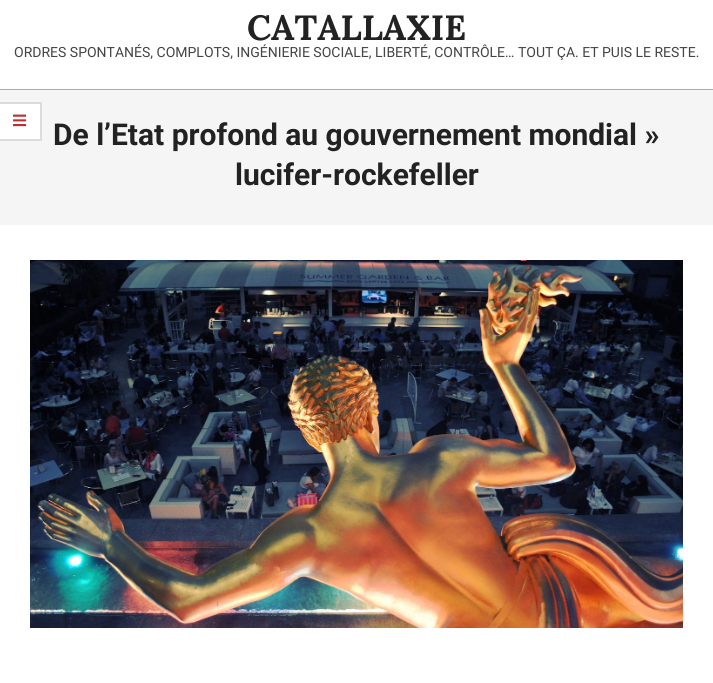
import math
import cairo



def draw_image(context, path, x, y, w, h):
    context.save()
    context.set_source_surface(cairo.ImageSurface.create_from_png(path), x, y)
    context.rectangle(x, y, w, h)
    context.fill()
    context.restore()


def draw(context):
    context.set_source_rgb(1, 1, 1)
    context.paint()
    context.set_source_rgb(171 / 255, 171 / 255, 171 / 255)
    context.rectangle(0, 89, 713, 1)
    context.fill()
    context.set_source_rgb(245 / 255, 245 / 255, 245 / 255)
    context.rectangle(0, 90, 713, 135)
    context.fill()
    context.set_source_rgb(1, 1, 1)
    context.rectangle(0, 102, 42, 39)
    context.fill()
    context.set_source_rgb(219 / 255, 219 / 255, 219 / 255)
    context.new_path()
    context.move_to(0, 102)
    context.line_to(42, 102)
    context.line_to(40, 104)
    context.line_to(0, 104)
    context.close_path()
    context.fill()
    context.set_source_rgba(0, 0, 0, 0.14)
    context.new_path()
    context.move_to(42, 102)
    context.line_to(42, 141)
    context.line_to(40, 139)
    context.line_to(40, 104)
    context.close_path()
    context.fill()
    context.new_path()
    context.move_to(42, 141)
    context.line_to(0, 141)
    context.line_to(0, 139)
    context.line_to(40, 139)
    context.close_path()
    context.fill()
    draw_image(context, "images/1.png", 13, 114, 14, 13)
    draw_image(context, "images/2.png", 30, 260, 653, 368)
    context.select_font_face("Lora", cairo.FontSlant.NORMAL, cairo.FontWeight.BOLD)
    context.set_font_size(35)
    context.set_source_rgb(34 / 255, 34 / 255, 34 / 255)
    context.move_to(247, 40)
    context.show_text("CATALLAXIE")
    context.select_font_face("Roboto")
    context.set_font_size(14)
    context.set_source_rgb(68 / 255, 68 / 255, 68 / 255)
    context.move_to(14, 57)
    context.show_text("ORDRES SPONTANÉS, COMPLOTS, INGÉNIERIE SOCIALE, LIBERTÉ, CONTRÔLE… TOUT ÇA. ET PUIS LE RESTE.")
    context.select_font_face("Roboto", cairo.FontSlant.NORMAL, cairo.FontWeight.BOLD)
    context.set_font_size(30)
    context.set_source_rgb(34 / 255, 34 / 255, 34 / 255)
    context.move_to(53, 145)
    context.show_text("De l’Etat profond au gouvernement mondial »")
    context.move_to(235, 185)
    context.show_text("lucifer-rockefeller")


surface = cairo.ImageSurface(cairo.Format.RGB24, 713, 683)
context = cairo.Context(surface)
options = cairo.FontOptions()
options.set_hint_metrics(cairo.HintMetrics.OFF)
options.set_hint_style(cairo.HintStyle.NONE)
context.set_font_options(options)
context.set_miter_limit(4)
draw(context)
surface.write_to_png("out.png")
